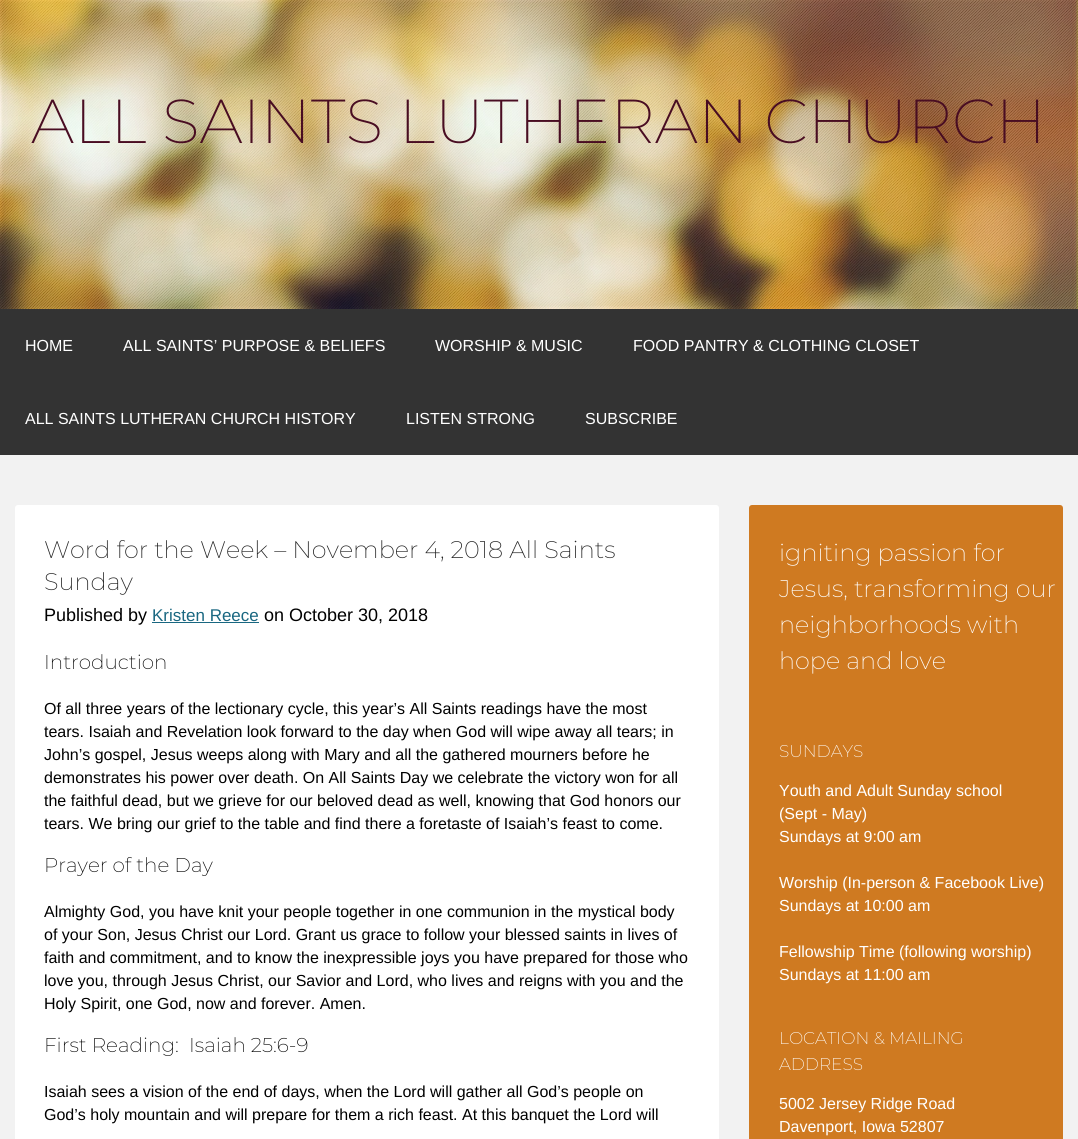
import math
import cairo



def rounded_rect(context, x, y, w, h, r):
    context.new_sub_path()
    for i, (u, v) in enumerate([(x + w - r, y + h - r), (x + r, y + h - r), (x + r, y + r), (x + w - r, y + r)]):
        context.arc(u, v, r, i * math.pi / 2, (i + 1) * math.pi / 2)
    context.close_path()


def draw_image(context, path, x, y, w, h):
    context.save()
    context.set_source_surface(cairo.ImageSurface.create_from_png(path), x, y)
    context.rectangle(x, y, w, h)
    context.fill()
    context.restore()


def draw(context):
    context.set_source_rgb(242 / 255, 242 / 255, 242 / 255)
    context.paint()
    draw_image(context, "images/1.png", 0, 0, 1078, 309)
    context.set_source_rgb(51 / 255, 51 / 255, 51 / 255)
    context.rectangle(0, 309, 1078, 146)
    context.fill()
    context.set_source_rgb(1, 1, 1)
    rounded_rect(context, 15, 505, 704, 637, 3)
    context.fill()
    context.set_source_rgb(25 / 255, 103 / 255, 129 / 255)
    context.rectangle(152, 622, 107, 1)
    context.fill()
    context.set_source_rgb(207 / 255, 122 / 255, 33 / 255)
    rounded_rect(context, 749, 505, 314, 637, 3)
    context.fill()
    context.select_font_face("Montserrat ExtraLight")
    context.set_font_size(62)
    context.set_source_rgb(73 / 255, 13 / 255, 34 / 255)
    context.move_to(31, 143)
    context.show_text("ALL SAINTS LUTHERAN CHURCH")
    context.select_font_face("Liberation Sans")
    context.set_font_size(16)
    context.set_source_rgb(1, 1, 1)
    context.move_to(25, 351)
    context.show_text("HOME")
    context.move_to(123, 351)
    context.show_text("ALL SAINTS’ PURPOSE & BELIEFS")
    context.move_to(435, 351)
    context.show_text("WORSHIP & MUSIC")
    context.move_to(633, 351)
    context.show_text("FOOD PANTRY & CLOTHING CLOSET")
    context.move_to(25, 424)
    context.show_text("ALL SAINTS LUTHERAN CHURCH HISTORY")
    context.move_to(406, 424)
    context.show_text("LISTEN STRONG")
    context.move_to(585, 424)
    context.show_text("SUBSCRIBE")
    context.select_font_face("Montserrat ExtraLight")
    context.set_font_size(24)
    context.set_source_rgb(35 / 255, 35 / 255, 35 / 255)
    context.move_to(44, 558)
    context.show_text("Word for the Week – November 4, 2018 All Saints")
    context.move_to(44, 590)
    context.show_text("Sunday")
    context.select_font_face("Liberation Sans")
    context.set_font_size(18)
    context.set_source_rgb(0, 0, 0)
    context.move_to(44, 621)
    context.show_text("Published by")
    context.set_font_size(17)
    context.set_source_rgb(25 / 255, 103 / 255, 129 / 255)
    context.move_to(152, 621)
    context.show_text("Kristen Reece")
    context.set_font_size(18)
    context.set_source_rgb(0, 0, 0)
    context.move_to(264, 621)
    context.show_text("on October 30, 2018")
    context.select_font_face("Montserrat ExtraLight")
    context.set_font_size(20)
    context.move_to(44, 669)
    context.show_text("Introduction")
    context.select_font_face("Liberation Sans")
    context.set_font_size(16)
    context.move_to(44, 714)
    context.show_text("Of all three years of the lectionary cycle, this year’s All Saints readings have the most")
    context.move_to(44, 737)
    context.show_text("tears. Isaiah and Revelation look forward to the day when God will wipe away all tears; in")
    context.move_to(44, 760)
    context.show_text("John’s gospel, Jesus weeps along with Mary and all the gathered mourners before he")
    context.move_to(44, 783)
    context.show_text("demonstrates his power over death. On All Saints Day we celebrate the victory won for all")
    context.move_to(44, 806)
    context.show_text("the faithful dead, but we grieve for our beloved dead as well, knowing that God honors our")
    context.move_to(44, 829)
    context.show_text("tears. We bring our grief to the table and find there a foretaste of Isaiah’s feast to come.")
    context.select_font_face("Montserrat ExtraLight")
    context.set_font_size(20)
    context.move_to(44, 872)
    context.show_text("Prayer of the Day")
    context.select_font_face("Liberation Sans")
    context.set_font_size(16)
    context.move_to(44, 917)
    context.show_text("Almighty God, you have knit your people together in one communion in the mystical body")
    context.move_to(44, 940)
    context.show_text("of your Son, Jesus Christ our Lord. Grant us grace to follow your blessed saints in lives of")
    context.move_to(44, 963)
    context.show_text("faith and commitment, and to know the inexpressible joys you have prepared for those who")
    context.move_to(44, 986)
    context.show_text("love you, through Jesus Christ, our Savior and Lord, who lives and reigns with you and the")
    context.move_to(44, 1009)
    context.show_text("Holy Spirit, one God, now and forever. Amen.")
    context.select_font_face("Montserrat ExtraLight")
    context.set_font_size(20)
    context.move_to(44, 1052)
    context.show_text("First Reading:  Isaiah 25:6-9")
    context.select_font_face("Liberation Sans")
    context.set_font_size(16)
    context.move_to(44, 1097)
    context.show_text("Isaiah sees a vision of the end of days, when the Lord will gather all God’s people on")
    context.move_to(44, 1120)
    context.show_text("God’s holy mountain and will prepare for them a rich feast. At this banquet the Lord will")
    context.select_font_face("Montserrat ExtraLight")
    context.set_font_size(24)
    context.set_source_rgb(1, 1, 1)
    context.move_to(779, 561)
    context.show_text("igniting passion for")
    context.move_to(779, 597)
    context.show_text("Jesus, transforming our")
    context.move_to(779, 633)
    context.show_text("neighborhoods with")
    context.move_to(779, 669)
    context.show_text("hope and love")
    context.set_font_size(17)
    context.move_to(779, 757)
    context.show_text("SUNDAYS")
    context.select_font_face("Liberation Sans")
    context.set_font_size(16)
    context.move_to(779, 796)
    context.show_text("Youth and Adult Sunday school")
    context.move_to(779, 819)
    context.show_text("(Sept - May)")
    context.move_to(779, 842)
    context.show_text("Sundays at 9:00 am")
    context.move_to(779, 888)
    context.show_text("Worship (In-person & Facebook Live)")
    context.move_to(779, 911)
    context.show_text("Sundays at 10:00 am")
    context.move_to(779, 957)
    context.show_text("Fellowship Time (following worship)")
    context.move_to(779, 980)
    context.show_text("Sundays at 11:00 am")
    context.select_font_face("Montserrat ExtraLight")
    context.set_font_size(17)
    context.move_to(779, 1044)
    context.show_text("LOCATION & MAILING")
    context.move_to(779, 1070)
    context.show_text("ADDRESS")
    context.select_font_face("Liberation Sans")
    context.set_font_size(16)
    context.move_to(779, 1109)
    context.show_text("5002 Jersey Ridge Road")
    context.move_to(779, 1132)
    context.show_text("Davenport, Iowa 52807")


surface = cairo.ImageSurface(cairo.Format.RGB24, 1078, 1139)
context = cairo.Context(surface)
options = cairo.FontOptions()
options.set_hint_metrics(cairo.HintMetrics.OFF)
options.set_hint_style(cairo.HintStyle.NONE)
context.set_font_options(options)
context.set_miter_limit(4)
draw(context)
surface.write_to_png("out.png")
